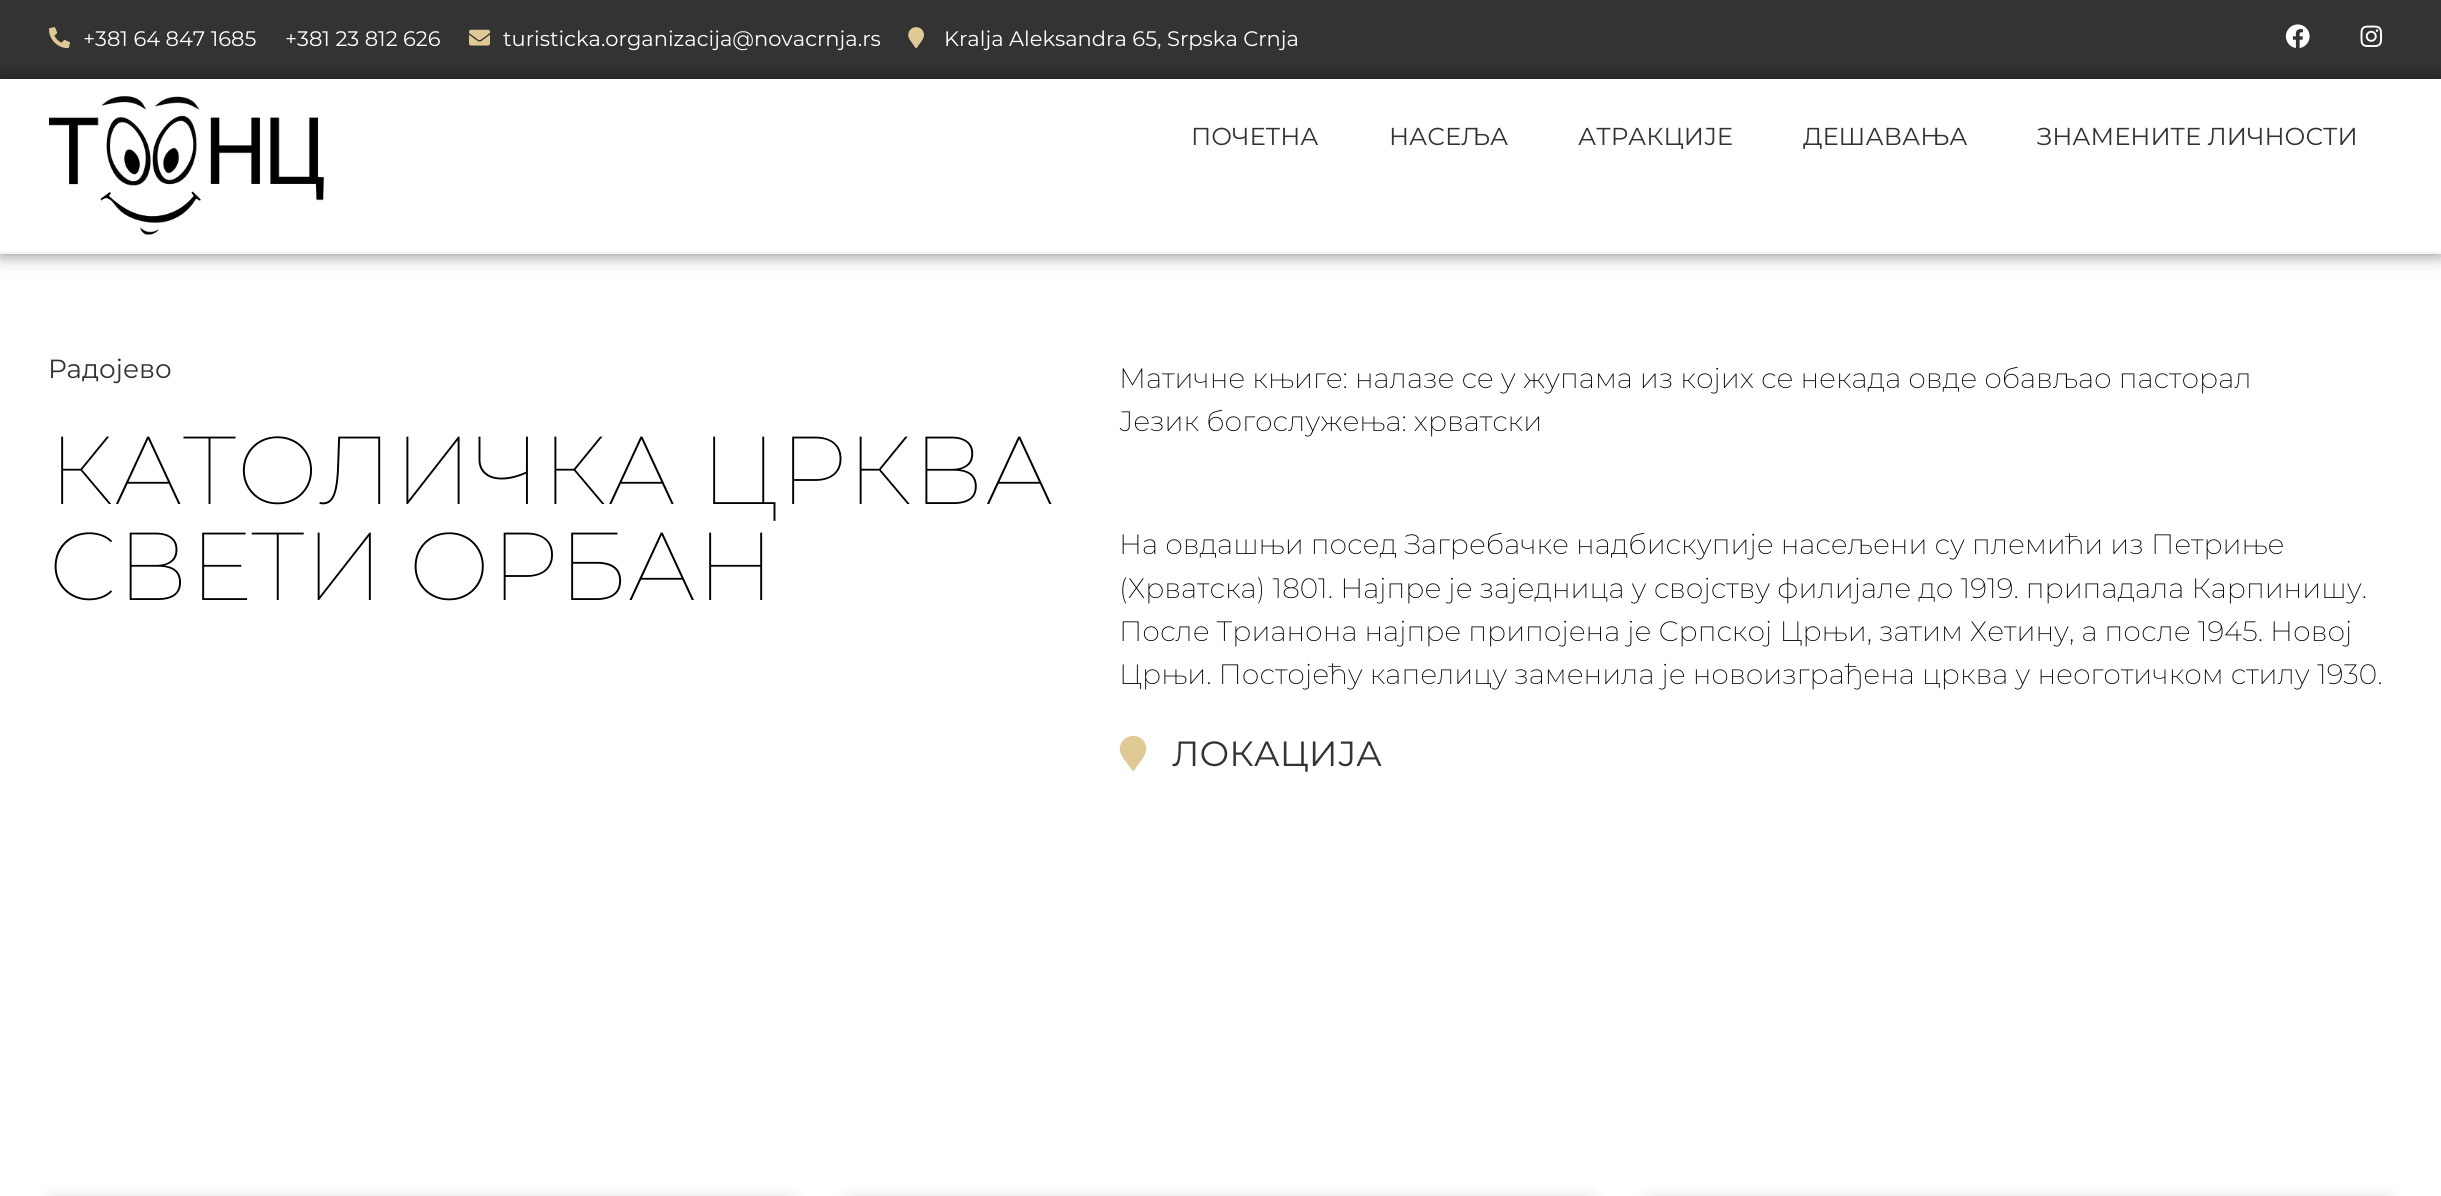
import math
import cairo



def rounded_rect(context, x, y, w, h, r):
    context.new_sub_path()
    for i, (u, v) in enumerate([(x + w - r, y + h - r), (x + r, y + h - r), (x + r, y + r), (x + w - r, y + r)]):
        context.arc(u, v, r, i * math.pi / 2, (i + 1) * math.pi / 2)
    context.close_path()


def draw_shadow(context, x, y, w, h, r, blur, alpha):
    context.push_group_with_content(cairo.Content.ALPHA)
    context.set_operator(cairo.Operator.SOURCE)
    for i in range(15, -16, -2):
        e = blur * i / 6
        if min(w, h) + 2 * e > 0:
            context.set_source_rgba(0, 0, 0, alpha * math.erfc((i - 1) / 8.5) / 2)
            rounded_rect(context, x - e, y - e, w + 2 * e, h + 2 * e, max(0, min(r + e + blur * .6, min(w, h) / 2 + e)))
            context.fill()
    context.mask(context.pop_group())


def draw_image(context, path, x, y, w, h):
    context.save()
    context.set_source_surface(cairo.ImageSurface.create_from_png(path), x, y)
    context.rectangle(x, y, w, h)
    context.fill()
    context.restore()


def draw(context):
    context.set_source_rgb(1, 1, 1)
    context.paint()
    context.set_source_rgb(51 / 255, 51 / 255, 51 / 255)
    context.rectangle(0, 0, 2441, 79)
    context.fill()
    draw_image(context, "images/1.png", 49, 27, 21, 22)
    draw_image(context, "images/2.png", 469, 29, 21, 17)
    draw_image(context, "images/3.png", 908, 27, 16, 22)
    draw_image(context, "images/4.png", 2285, 24, 25, 24)
    draw_image(context, "images/5.png", 2360, 25, 22, 22)
    context.save()
    context.set_fill_rule(cairo.FillRule.EVEN_ODD)
    context.new_path()
    context.move_to(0, 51)
    context.line_to(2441, 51)
    context.line_to(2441, 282)
    context.line_to(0, 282)
    context.close_path()
    context.move_to(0, 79)
    context.line_to(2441, 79)
    context.line_to(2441, 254)
    context.line_to(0, 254)
    context.close_path()
    context.clip()
    context.set_source_rgb(0, 0, 0)
    draw_shadow(context, 0, 79, 2441, 175, 0, 9, 0.5)
    context.restore()
    context.set_source_rgb(244 / 255, 244 / 255, 244 / 255)
    context.rectangle(0, 252, 2441, 2)
    context.fill()
    draw_image(context, "images/6.png", 49, 96, 275, 139)
    context.set_source_rgb(223 / 255, 201 / 255, 149 / 255)
    context.new_path()
    context.move_to(1132, 770)
    context.line_to(1126, 762)
    context.curve_to(1124, 759, 1121, 755.5, 1120, 751.5)
    context.curve_to(1117.5, 737.5, 1136, 730, 1144, 741.5)
    context.curve_to(1150, 750.5, 1143, 758, 1138, 765)
    context.line_to(1134, 770.5)
    context.curve_to(1133, 771, 1132, 771, 1132, 770)
    context.close_path()
    context.fill()
    context.set_source_rgb(0, 0, 0)
    draw_shadow(context, 49, 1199, 746, 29, 5, 9, 0.15)
    draw_shadow(context, 847, 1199, 747, 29, 5, 9, 0.15)
    draw_shadow(context, 1647, 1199, 745, 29, 5, 9, 0.15)
    context.select_font_face("Montserrat")
    context.set_font_size(21)
    context.set_source_rgb(1, 1, 1)
    context.move_to(83, 46)
    context.show_text("+381 64 847 1685")
    context.move_to(285, 46)
    context.show_text("+381 23 812 626")
    context.move_to(503, 46)
    context.show_text("turisticka.organizacija@novacrnja.rs")
    context.move_to(944, 46)
    context.show_text("Kralja Aleksandra 65, Srpska Crnja")
    context.set_font_size(24.5)
    context.set_source_rgb(51 / 255, 51 / 255, 51 / 255)
    context.move_to(1191, 145)
    context.show_text("ПОЧЕТНА")
    context.move_to(1389, 145)
    context.show_text("НАСЕЉА")
    context.move_to(1578, 145)
    context.show_text("АТРАКЦИЈЕ")
    context.move_to(1803, 145)
    context.show_text("ДЕШАВАЊА")
    context.move_to(2037, 145)
    context.show_text("ЗНАМЕНИТЕ ЛИЧНОСТИ")
    context.set_font_size(26.25)
    context.move_to(48, 378)
    context.show_text("Радојево")
    context.select_font_face("Montserrat Thin")
    context.set_font_size(96.25)
    context.set_source_rgb(0, 0, 0)
    context.move_to(48, 504)
    context.show_text("КАТОЛИЧКА ЦРКВА")
    context.move_to(48, 600)
    context.show_text("СВЕТИ ОРБАН")
    context.select_font_face("Montserrat ExtraLight")
    context.set_font_size(28)
    context.move_to(1119, 388)
    context.show_text("Матичне књиге: налазе се у жупама из којих се некада овде обављао пасторал")
    context.move_to(1119, 431)
    context.show_text("Језик богослужења: хрватски")
    context.move_to(1119, 554)
    context.show_text("На овдашњи посед Загребачке надбискупије насељени су племићи из Петриње")
    context.move_to(1119, 598)
    context.show_text("(Хрватска) 1801. Најпре је заједница у својству филијале до 1919. припадала Карпинишу.")
    context.move_to(1119, 641)
    context.show_text("После Трианона најпре припојена је Српској Црњи, затим Хетину, а после 1945. Новој")
    context.move_to(1119, 684)
    context.show_text("Црњи. Постојећу капелицу заменила је новоизграђена црква у неоготичком стилу 1930.")
    context.select_font_face("Montserrat")
    context.set_font_size(35)
    context.set_source_rgb(51 / 255, 51 / 255, 51 / 255)
    context.move_to(1172, 766)
    context.show_text("ЛОКАЦИЈА")


surface = cairo.ImageSurface(cairo.Format.RGB24, 2441, 1196)
context = cairo.Context(surface)
options = cairo.FontOptions()
options.set_hint_metrics(cairo.HintMetrics.OFF)
options.set_hint_style(cairo.HintStyle.NONE)
context.set_font_options(options)
context.set_miter_limit(4)
draw(context)
surface.write_to_png("out.png")
